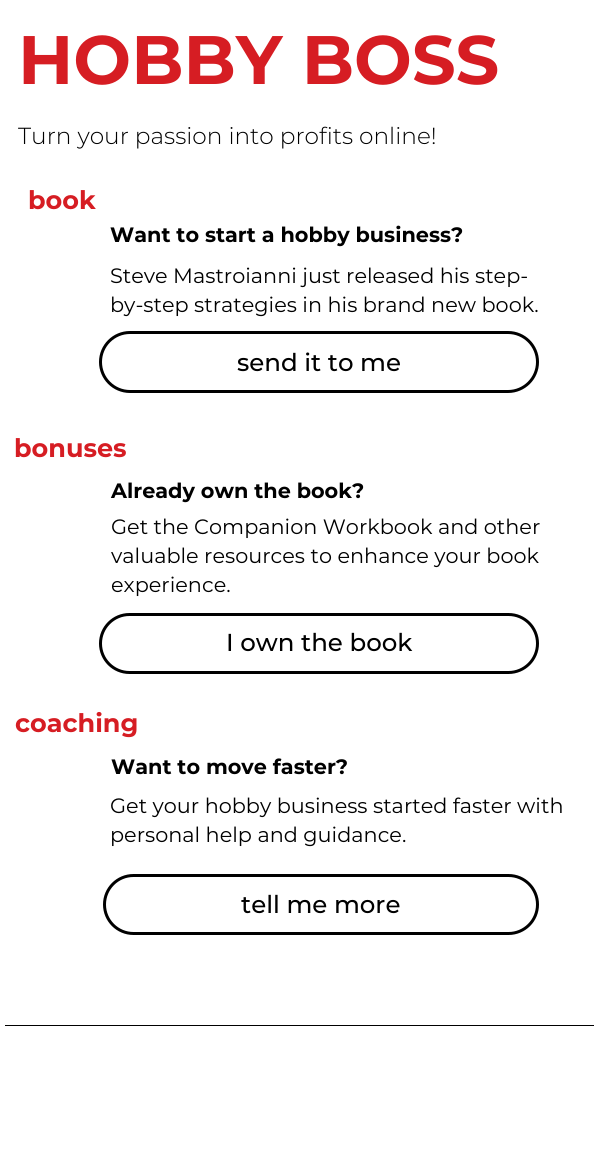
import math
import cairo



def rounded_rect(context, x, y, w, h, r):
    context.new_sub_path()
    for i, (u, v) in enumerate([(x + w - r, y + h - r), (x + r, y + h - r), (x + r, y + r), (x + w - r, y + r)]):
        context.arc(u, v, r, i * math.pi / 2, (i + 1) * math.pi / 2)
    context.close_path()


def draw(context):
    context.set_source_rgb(1, 1, 1)
    context.paint()
    rounded_rect(context, 100.5, 332.5, 437, 59, 29.5)
    context.set_source_rgb(0, 0, 0)
    context.set_line_width(3)
    context.stroke()
    rounded_rect(context, 100.5, 614.5, 437, 58, 29)
    context.stroke()
    rounded_rect(context, 104.5, 875.5, 433, 58, 29)
    context.stroke()
    context.rectangle(5, 1025, 589, 1)
    context.fill()
    context.select_font_face("Montserrat", cairo.FontSlant.NORMAL, cairo.FontWeight.BOLD)
    context.set_font_size(68.5)
    context.set_source_rgb(214 / 255, 29 / 255, 35 / 255)
    context.move_to(18, 84)
    context.show_text("HOBBY BOSS")
    context.select_font_face("Montserrat Light")
    context.set_font_size(23.25)
    context.set_source_rgb(0, 0, 0)
    context.move_to(18, 144)
    context.show_text("Turn your passion into profits online!")
    context.select_font_face("Montserrat", cairo.FontSlant.NORMAL, cairo.FontWeight.BOLD)
    context.set_font_size(25.5)
    context.set_source_rgb(214 / 255, 29 / 255, 35 / 255)
    context.move_to(28, 209)
    context.show_text("book")
    context.set_font_size(20.8)
    context.set_source_rgb(0, 0, 0)
    context.move_to(110, 242)
    context.show_text("Want to start a hobby business?")
    context.select_font_face("Montserrat")
    context.move_to(110, 283)
    context.show_text("Steve Mastroianni just released his step-")
    context.move_to(110, 312)
    context.show_text("by-step strategies in his brand new book.")
    context.select_font_face("Montserrat Medium")
    context.set_font_size(24.5)
    context.move_to(237, 371)
    context.show_text("send it to me")
    context.select_font_face("Montserrat", cairo.FontSlant.NORMAL, cairo.FontWeight.BOLD)
    context.set_font_size(25.5)
    context.set_source_rgb(214 / 255, 29 / 255, 35 / 255)
    context.move_to(14, 457)
    context.show_text("bonuses")
    context.set_font_size(20.8)
    context.set_source_rgb(0, 0, 0)
    context.move_to(111, 498)
    context.show_text("Already own the book?")
    context.select_font_face("Montserrat")
    context.move_to(111, 534)
    context.show_text("Get the Companion Workbook and other")
    context.move_to(111, 563)
    context.show_text("valuable resources to enhance your book")
    context.move_to(111, 592)
    context.show_text("experience.")
    context.select_font_face("Montserrat Medium")
    context.set_font_size(24.5)
    context.move_to(226, 651)
    context.show_text("I own the book")
    context.select_font_face("Montserrat", cairo.FontSlant.NORMAL, cairo.FontWeight.BOLD)
    context.set_font_size(25.5)
    context.set_source_rgb(214 / 255, 29 / 255, 35 / 255)
    context.move_to(15, 732)
    context.show_text("coaching")
    context.set_font_size(20.8)
    context.set_source_rgb(0, 0, 0)
    context.move_to(111, 774)
    context.show_text("Want to move faster?")
    context.select_font_face("Montserrat")
    context.move_to(110, 813)
    context.show_text("Get your hobby business started faster with")
    context.move_to(110, 842)
    context.show_text("personal help and guidance.")
    context.select_font_face("Montserrat Medium")
    context.set_font_size(24.5)
    context.move_to(241, 913)
    context.show_text("tell me more")


surface = cairo.ImageSurface(cairo.Format.RGB24, 598, 1159)
context = cairo.Context(surface)
options = cairo.FontOptions()
options.set_hint_metrics(cairo.HintMetrics.OFF)
options.set_hint_style(cairo.HintStyle.NONE)
context.set_font_options(options)
context.set_miter_limit(4)
draw(context)
surface.write_to_png("out.png")
